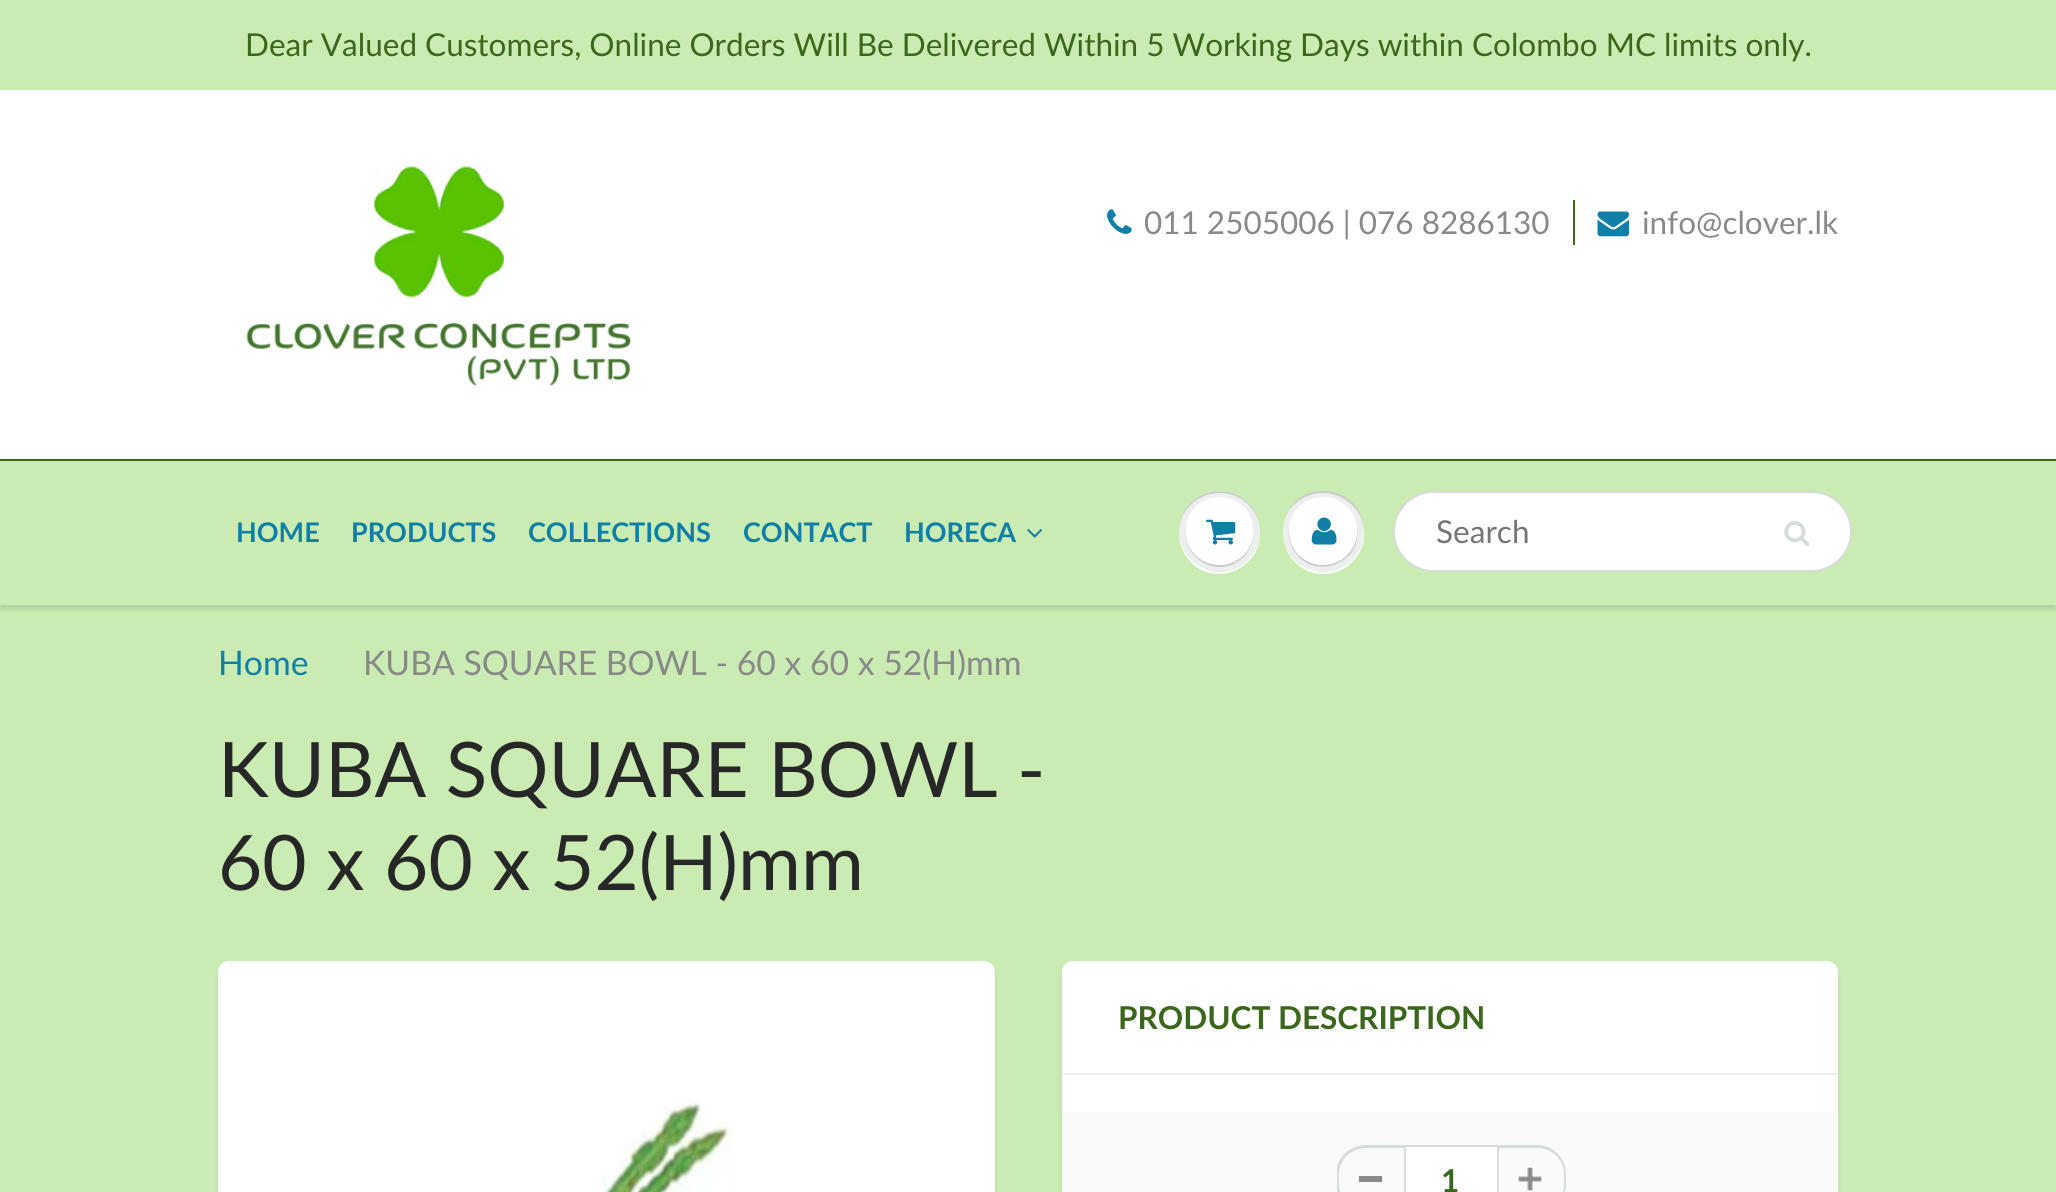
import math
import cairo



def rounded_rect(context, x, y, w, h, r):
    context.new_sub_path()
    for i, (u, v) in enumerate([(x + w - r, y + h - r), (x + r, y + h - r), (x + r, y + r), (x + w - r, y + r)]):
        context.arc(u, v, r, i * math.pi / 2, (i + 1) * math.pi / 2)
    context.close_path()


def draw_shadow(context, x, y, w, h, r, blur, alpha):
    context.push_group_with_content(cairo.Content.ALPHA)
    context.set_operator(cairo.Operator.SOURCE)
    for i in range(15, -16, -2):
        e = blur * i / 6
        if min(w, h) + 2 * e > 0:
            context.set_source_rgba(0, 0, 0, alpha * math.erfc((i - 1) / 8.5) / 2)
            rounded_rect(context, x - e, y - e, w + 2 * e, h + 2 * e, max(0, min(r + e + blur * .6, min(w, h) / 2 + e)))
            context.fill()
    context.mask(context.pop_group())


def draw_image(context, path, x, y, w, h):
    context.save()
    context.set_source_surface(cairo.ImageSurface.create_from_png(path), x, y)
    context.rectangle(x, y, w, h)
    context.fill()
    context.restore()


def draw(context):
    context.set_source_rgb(1, 1, 1)
    context.paint()
    context.set_source_rgb(202 / 255, 236 / 255, 178 / 255)
    context.rectangle(0, 0, 2056, 90)
    context.fill()
    draw_image(context, "images/1.png", 246, 166, 386, 220)
    draw_image(context, "images/2.png", 1107, 209, 25, 25)
    context.set_source_rgb(59 / 255, 103 / 255, 28 / 255)
    context.rectangle(1573, 200, 2, 45)
    context.fill()
    draw_image(context, "images/3.png", 1597, 211, 32, 26)
    context.set_source_rgb(202 / 255, 236 / 255, 178 / 255)
    context.rectangle(0, 605, 2056, 587)
    context.fill()
    context.set_source_rgb(11 / 255, 25 / 255, 28 / 255)
    draw_shadow(context, 0, 464, 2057, 146, 0, 2, 0.12)
    context.set_source_rgb(202 / 255, 236 / 255, 178 / 255)
    context.rectangle(0, 461, 2056, 144)
    context.fill()
    context.set_source_rgb(59 / 255, 103 / 255, 28 / 255)
    context.rectangle(0, 459, 2056, 2)
    context.fill()
    draw_image(context, "images/4.png", 1027, 529, 16, 9)
    context.set_source_rgb(1, 1, 1)
    context.new_path()
    context.move_to(1260, 532)
    context.curve_to(1259, 554, 1241, 572, 1220, 572)
    context.curve_to(1198, 572, 1180, 554, 1179, 532)
    context.curve_to(1179, 541, 1181, 549, 1186, 556)
    context.curve_to(1208, 590, 1261, 572, 1260, 532)
    context.close_path()
    context.fill()
    context.set_source_rgb(237 / 255, 239 / 255, 239 / 255)
    context.arc(1219.5, 531.5, 40.5, 0, 2 * math.pi)
    context.fill()
    context.set_source_rgb(201 / 255, 203 / 255, 203 / 255)
    context.new_path()
    context.move_to(1253, 536)
    context.curve_to(1248, 574, 1191, 574, 1186, 536)
    context.curve_to(1187, 553, 1202, 567, 1220, 567)
    context.curve_to(1237, 567, 1252, 553, 1253, 536)
    context.close_path()
    context.fill()
    context.new_path()
    context.move_to(1220, 493)
    context.curve_to(1242, 493, 1260, 511, 1260, 532)
    context.curve_to(1260, 524, 1258, 516, 1253, 509)
    context.curve_to(1231, 476, 1178, 492, 1179, 532)
    context.curve_to(1179, 511, 1197, 493, 1220, 493)
    context.close_path()
    context.fill()
    context.set_source_rgb(1, 1, 1)
    rounded_rect(context, 1186, 497, 67, 68, 33.5)
    context.fill()
    context.new_path()
    context.move_to(1220, 500)
    context.curve_to(1238, 500, 1253, 515, 1253, 532)
    context.curve_to(1254, 486, 1185, 486, 1186, 532)
    context.curve_to(1186, 515, 1201, 500, 1220, 500)
    context.close_path()
    context.fill()
    draw_image(context, "images/5.png", 1206, 519, 30, 26)
    context.new_path()
    context.move_to(1284, 540)
    context.curve_to(1285, 550, 1290, 558, 1297, 564)
    context.curve_to(1327, 590, 1372, 562, 1363, 524)
    context.curve_to(1364, 532, 1363, 540, 1360, 547)
    context.curve_to(1345, 583, 1292, 578, 1284, 540)
    context.close_path()
    context.fill()
    context.set_source_rgb(237 / 255, 239 / 255, 239 / 255)
    context.arc(1323.5, 531.5, 40.5, 0, 2 * math.pi)
    context.fill()
    context.set_source_rgb(201 / 255, 203 / 255, 203 / 255)
    context.new_path()
    context.move_to(1323, 493)
    context.curve_to(1345, 493, 1364, 511, 1364, 532)
    context.curve_to(1365, 488, 1304, 475, 1286, 515)
    context.curve_to(1293, 502, 1307, 493, 1323, 493)
    context.close_path()
    context.fill()
    context.new_path()
    context.move_to(1289, 529)
    context.curve_to(1288, 537, 1290, 545, 1295, 552)
    context.curve_to(1314, 581, 1362, 564, 1357, 529)
    context.curve_to(1359, 563, 1314, 578, 1295, 550)
    context.curve_to(1291, 544, 1289, 536, 1289, 529)
    context.close_path()
    context.fill()
    context.set_source_rgb(1, 1, 1)
    context.arc(1323, 531, 34, 0, 2 * math.pi)
    context.fill()
    context.new_path()
    context.move_to(1323, 500)
    context.curve_to(1342, 500, 1356, 514, 1357, 532)
    context.curve_to(1357, 525, 1355, 518, 1351, 512)
    context.curve_to(1332, 484, 1288, 498, 1289, 532)
    context.curve_to(1290, 514, 1304, 500, 1323, 500)
    context.close_path()
    context.fill()
    draw_image(context, "images/6.png", 1311, 517, 26, 28)
    rounded_rect(context, 1394, 492, 457, 79, 39.5)
    context.fill_preserve()
    context.set_source_rgb(215 / 255, 219 / 255, 219 / 255)
    context.stroke()
    draw_image(context, "images/7.png", 1784, 521, 26, 25)
    context.set_source_rgb(11 / 255, 25 / 255, 28 / 255)
    draw_shadow(context, 218, 965, 777, 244, 11, 2, 0.1)
    context.set_source_rgb(1, 1, 1)
    rounded_rect(context, 218, 961, 777, 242, 11)
    context.fill()
    draw_image(context, "images/8.png", 601, 1102, 136, 90)
    context.set_source_rgb(11 / 255, 25 / 255, 28 / 255)
    draw_shadow(context, 1062, 965, 776, 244, 11, 2, 0.1)
    context.set_source_rgb(1, 1, 1)
    rounded_rect(context, 1062, 961, 776, 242, 11)
    context.fill()
    context.set_source_rgb(239 / 255, 239 / 255, 239 / 255)
    context.rectangle(1062, 1073, 776, 2)
    context.fill()
    context.set_source_rgb(250 / 255, 250 / 255, 250 / 255)
    context.rectangle(1062, 1112, 776, 80)
    context.fill()
    context.set_source_rgb(137 / 255, 137 / 255, 137 / 255)
    context.rectangle(1359, 1176, 23, 6)
    context.fill()
    context.save()
    context.rectangle(1337, 1145, 229, 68)
    context.clip()
    context.set_source_rgb(215 / 255, 219 / 255, 219 / 255)
    context.set_fill_rule(cairo.FillRule.EVEN_ODD)
    context.new_path()
    context.move_to(1366, 1145)
    context.line_to(1404, 1145)
    context.line_to(1404, 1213)
    context.line_to(1366, 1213)
    context.curve_to(1350, 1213, 1336, 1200, 1336, 1184)
    context.line_to(1336, 1174)
    context.curve_to(1336, 1158, 1350, 1145, 1366, 1145)
    context.close_path()
    context.move_to(1366, 1148)
    context.line_to(1404, 1148)
    context.line_to(1404, 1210)
    context.line_to(1366, 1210)
    context.curve_to(1351, 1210, 1339, 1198, 1339, 1184)
    context.line_to(1339, 1174)
    context.curve_to(1339, 1160, 1351, 1148, 1366, 1148)
    context.close_path()
    context.fill()
    context.restore()
    context.set_source_rgb(1, 1, 1)
    context.rectangle(1405, 1146, 93, 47)
    context.fill_preserve()
    context.set_source_rgb(215 / 255, 219 / 255, 219 / 255)
    context.stroke()
    draw_image(context, "images/9.png", 1518, 1167, 24, 24)
    context.set_fill_rule(cairo.FillRule.EVEN_ODD)
    context.new_path()
    context.move_to(1498, 1145)
    context.line_to(1537, 1145)
    context.curve_to(1553, 1145, 1566, 1158, 1566, 1174)
    context.line_to(1566, 1184)
    context.curve_to(1566, 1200, 1553, 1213, 1537, 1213)
    context.line_to(1498, 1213)
    context.close_path()
    context.move_to(1498, 1148)
    context.line_to(1537, 1148)
    context.curve_to(1552, 1148, 1564, 1160, 1564, 1174)
    context.line_to(1564, 1184)
    context.curve_to(1564, 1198, 1552, 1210, 1537, 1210)
    context.line_to(1498, 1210)
    context.close_path()
    context.fill()
    context.select_font_face("Lato")
    context.set_font_size(31.5)
    context.set_source_rgb(59 / 255, 103 / 255, 28 / 255)
    context.move_to(245, 56)
    context.show_text("Dear Valued Customers, Online Orders Will Be Delivered Within 5 Working Days within Colombo MC limits only.")
    context.set_source_rgb(137 / 255, 137 / 255, 137 / 255)
    context.move_to(1144, 234)
    context.show_text("011 2505006 | 076 8286130")
    context.move_to(1642, 234)
    context.show_text("info@clover.lk")
    context.select_font_face("Lato", cairo.FontSlant.NORMAL, cairo.FontWeight.BOLD)
    context.set_font_size(27)
    context.set_source_rgb(16 / 255, 127 / 255, 168 / 255)
    context.move_to(236, 542)
    context.show_text("HOME")
    context.move_to(351, 542)
    context.show_text("PRODUCTS")
    context.move_to(528, 542)
    context.show_text("COLLECTIONS")
    context.move_to(743, 542)
    context.show_text("CONTACT")
    context.move_to(904, 542)
    context.show_text("HORECA")
    context.select_font_face("Lato")
    context.set_font_size(31.5)
    context.set_source_rgb(117 / 255, 117 / 255, 117 / 255)
    context.move_to(1436, 543)
    context.show_text("Search")
    context.set_font_size(33.75)
    context.set_source_rgb(16 / 255, 127 / 255, 168 / 255)
    context.move_to(218, 675)
    context.show_text("Home")
    context.set_source_rgb(137 / 255, 137 / 255, 137 / 255)
    context.move_to(363, 675)
    context.show_text("KUBA SQUARE BOWL - 60 x 60 x 52(H)mm")
    context.set_font_size(76.5)
    context.set_source_rgb(40 / 255, 39 / 255, 39 / 255)
    context.move_to(218, 797)
    context.show_text("KUBA SQUARE BOWL -")
    context.move_to(218, 890)
    context.show_text("60 x 60 x 52(H)mm")
    context.select_font_face("Lato", cairo.FontSlant.NORMAL, cairo.FontWeight.BOLD)
    context.set_font_size(31.5)
    context.set_source_rgb(59 / 255, 103 / 255, 28 / 255)
    context.move_to(1118, 1029)
    context.show_text("PRODUCT DESCRIPTION")
    context.move_to(1441, 1192)
    context.show_text("1")


surface = cairo.ImageSurface(cairo.Format.RGB24, 2056, 1192)
context = cairo.Context(surface)
options = cairo.FontOptions()
options.set_hint_metrics(cairo.HintMetrics.OFF)
options.set_hint_style(cairo.HintStyle.NONE)
context.set_font_options(options)
context.set_miter_limit(4)
draw(context)
surface.write_to_png("out.png")
